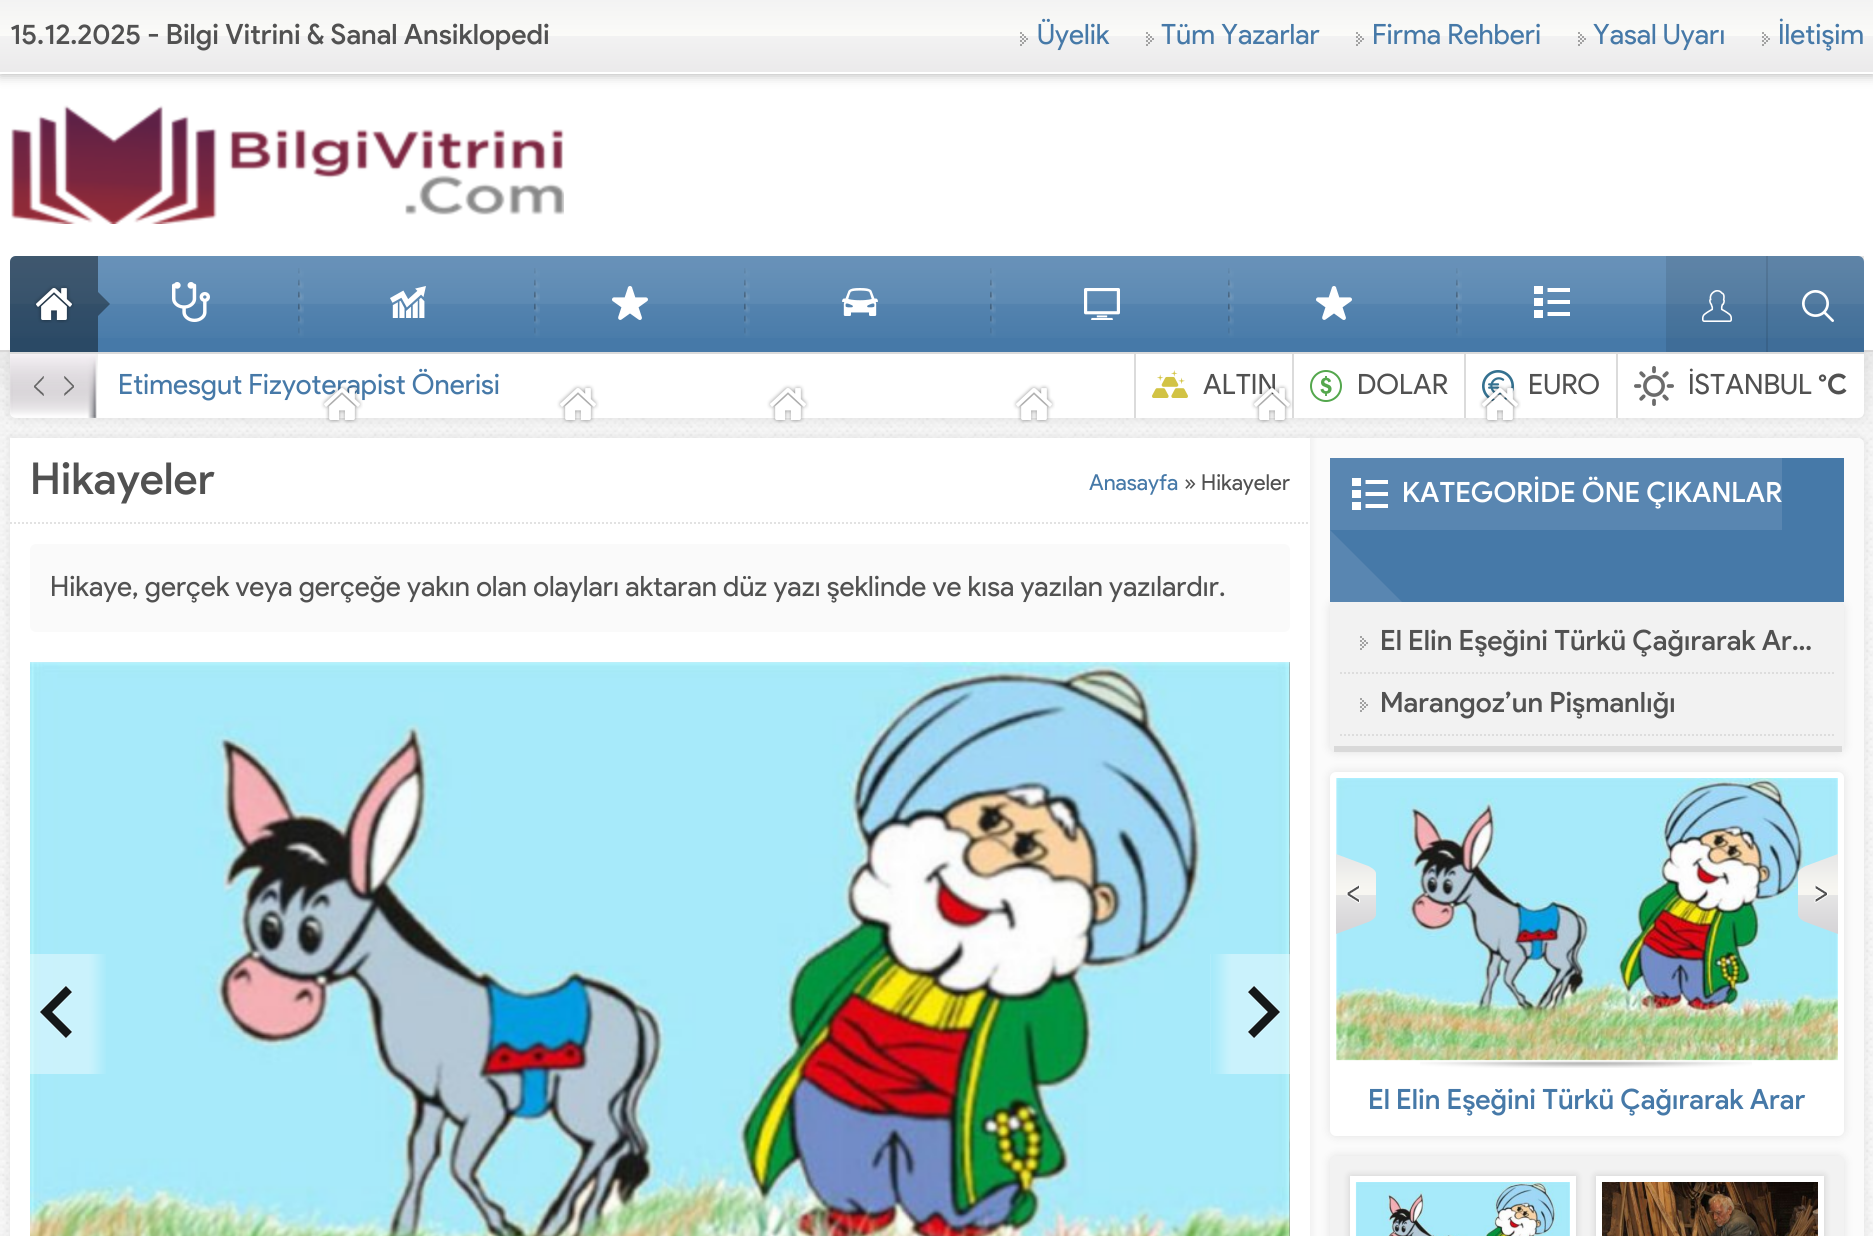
import math
import cairo



def rounded_rect(context, x, y, w, h, r):
    context.new_sub_path()
    for i, (u, v) in enumerate([(x + w - r, y + h - r), (x + r, y + h - r), (x + r, y + r), (x + w - r, y + r)]):
        context.arc(u, v, r, i * math.pi / 2, (i + 1) * math.pi / 2)
    context.close_path()


def draw_shadow(context, x, y, w, h, r, blur, alpha):
    context.push_group_with_content(cairo.Content.ALPHA)
    context.set_operator(cairo.Operator.SOURCE)
    for i in range(15, -16, -2):
        e = blur * i / 6
        if min(w, h) + 2 * e > 0:
            context.set_source_rgba(0, 0, 0, alpha * math.erfc((i - 1) / 8.5) / 2)
            rounded_rect(context, x - e, y - e, w + 2 * e, h + 2 * e, max(0, min(r + e + blur * .6, min(w, h) / 2 + e)))
            context.fill()
    context.mask(context.pop_group())


def draw_image(context, path, x, y, w, h):
    context.save()
    context.set_source_surface(cairo.ImageSurface.create_from_png(path), x, y)
    context.rectangle(x, y, w, h)
    context.fill()
    context.restore()


def draw(context):
    context.set_source_rgb(1, 1, 1)
    context.paint()
    draw_image(context, "images/1.png", 0, 352, 1873, 884)
    context.set_source_rgb(0, 0, 0)
    draw_shadow(context, 0, 0, 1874, 352, 0, 50, 0.13)
    context.set_source_rgb(1, 1, 1)
    context.rectangle(0, 74, 1873, 276)
    context.fill()
    context.set_source_rgb(216 / 255, 215 / 255, 215 / 255)
    context.rectangle(0, 350, 1873, 2)
    context.fill()
    context.set_source_rgb(170 / 255, 170 / 255, 170 / 255)
    draw_shadow(context, 0, 0, 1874, 74, 0, 6, 1)
    gradient = cairo.LinearGradient(937, 72, 937, 0)
    gradient.add_color_stop_rgba(0, 235 / 255, 234 / 255, 235 / 255, 1)
    gradient.add_color_stop_rgba(0.5, 242 / 255, 242 / 255, 242 / 255, 1)
    gradient.add_color_stop_rgba(0.5, 251 / 255, 251 / 255, 248 / 255, 1)
    gradient.add_color_stop_rgba(1, 243 / 255, 243 / 255, 243 / 255, 1)
    context.set_source(gradient)
    context.rectangle(0, 0, 1873, 72)
    context.fill()
    context.set_source_rgb(1, 1, 1)
    context.rectangle(0, 72, 1873, 2)
    context.fill()
    draw_image(context, "images/2.png", 1020, 32, 8, 14)
    draw_image(context, "images/2.png", 1146, 32, 8, 14)
    draw_image(context, "images/2.png", 1356, 32, 8, 14)
    draw_image(context, "images/2.png", 1578, 32, 8, 14)
    draw_image(context, "images/2.png", 1762, 32, 8, 14)
    draw_image(context, "images/3.png", 11, 105, 553, 119)
    context.set_source_rgb(0, 0, 0)
    draw_shadow(context, 10, 352, 1854, 66, 6, 5, 0.08)
    context.set_source_rgb(70 / 255, 121 / 255, 168 / 255)
    context.new_path()
    context.move_to(16, 256)
    context.line_to(1858, 256)
    context.curve_to(1861.5, 256, 1864, 258.5, 1864, 262)
    context.line_to(1864, 352)
    context.line_to(10, 352)
    context.line_to(10, 262)
    context.curve_to(10, 258.5, 12.5, 256, 16, 256)
    context.close_path()
    context.fill()
    gradient = cairo.LinearGradient(937, 256, 937, 352)
    gradient.add_color_stop_rgba(0, 1, 1, 1, 0.15)
    gradient.add_color_stop_rgba(1, 1, 1, 1, 0)
    context.set_source(gradient)
    context.rectangle(10, 256, 1854, 82)
    context.fill()
    context.set_source_rgba(1, 1, 1, 0.05)
    context.rectangle(10, 256, 1854, 48)
    context.fill()
    context.set_source_rgba(0, 0, 0, 0.4)
    context.new_path()
    context.move_to(16, 256)
    context.line_to(98, 256)
    context.line_to(98, 352)
    context.line_to(10, 352)
    context.line_to(10, 262)
    context.curve_to(10, 258.5, 12.5, 256, 16, 256)
    context.close_path()
    context.fill()
    draw_image(context, "images/4.png", 34, 285, 40, 38)
    context.new_path()
    context.move_to(98, 316)
    context.line_to(98, 292)
    context.line_to(110, 304)
    context.close_path()
    context.fill()
    draw_image(context, "images/5.png", 172, 282, 38, 40)
    draw_image(context, "images/7.png", 390, 286, 36, 32)
    context.set_source_rgb(1, 1, 1)
    context.new_path()
    context.move_to(10, 352)
    context.line_to(1864, 352)
    context.line_to(1864, 412)
    context.curve_to(1864, 415.5, 1861.5, 418, 1858, 418)
    context.line_to(16, 418)
    context.curve_to(12.5, 418, 10, 415.5, 10, 412)
    context.close_path()
    context.fill()
    context.set_source_rgb(219 / 255, 219 / 255, 219 / 255)
    context.rectangle(10, 352, 1854, 2)
    context.fill()
    context.set_source_rgb(0, 0, 0)
    draw_shadow(context, 1310, 438, 554, 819, 6, 5, 0.08)
    context.set_source_rgb(251 / 255, 251 / 255, 251 / 255)
    context.new_path()
    context.move_to(1310, 438)
    context.line_to(1858, 438)
    context.curve_to(1861.5, 438, 1864, 440.5, 1864, 444)
    context.line_to(1864, 1236)
    context.curve_to(1864, 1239.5, 1861.5, 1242, 1858, 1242)
    context.line_to(1310, 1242)
    context.close_path()
    context.fill()
    context.set_source_rgb(0, 0, 0)
    draw_shadow(context, 10, 438, 1300, 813, 0, 5, 0.08)
    draw_image(context, "images/8.png", 534, 268, 65, 155)
    draw_image(context, "images/9.png", 612, 286, 36, 34)
    draw_image(context, "images/10.png", 744, 268, 65, 155)
    draw_image(context, "images/11.png", 842, 288, 36, 28)
    draw_image(context, "images/12.png", 990, 268, 65, 155)
    draw_image(context, "images/13.png", 1084, 288, 36, 32)
    draw_image(context, "images/9.png", 1316, 286, 36, 34)
    context.set_source_rgb(219 / 255, 219 / 255, 219 / 255)
    context.rectangle(1464, 354, 2, 64)
    context.fill()
    draw_image(context, "images/24.png", 1482, 370, 32, 32)
    draw_image(context, "images/15.png", 1456, 268, 65, 155)
    draw_image(context, "images/16.png", 1534, 286, 36, 32)
    context.set_source_rgba(0, 0, 0, 0.1)
    context.rectangle(1666, 256, 198, 96)
    context.fill()
    draw_image(context, "images/17.png", 1702, 290, 30, 32)
    context.rectangle(1766, 256, 2, 96)
    context.fill()
    draw_image(context, "images/18.png", 1802, 290, 32, 32)
    draw_image(context, "images/19.png", 10, 354, 88, 64)
    draw_image(context, "images/20.png", 34, 376, 10, 20)
    draw_image(context, "images/21.png", 64, 376, 10, 20)
    context.set_source_rgb(219 / 255, 219 / 255, 219 / 255)
    context.rectangle(1134, 354, 2, 64)
    context.fill()
    draw_image(context, "images/22.png", 1152, 370, 36, 28)
    context.rectangle(1292, 354, 2, 64)
    context.fill()
    draw_image(context, "images/23.png", 1310, 370, 32, 32)
    context.rectangle(1616, 354, 2, 64)
    context.fill()
    draw_image(context, "images/25.png", 1634, 366, 40, 40)
    context.set_source_rgb(1, 1, 1)
    context.rectangle(10, 438, 1300, 798)
    context.fill()
    context.new_path()
    context.move_to(10, 523)
    context.line_to(1310, 523)
    context.set_source_rgb(226 / 255, 226 / 255, 226 / 255)
    context.set_dash([2, 2])
    context.stroke()
    context.set_source_rgb(250 / 255, 250 / 255, 250 / 255)
    rounded_rect(context, 30, 544, 1260, 88, 6)
    context.fill()
    draw_image(context, "images/26.png", 30, 662, 1260, 574)
    draw_image(context, "images/27.png", 1289, 662, 1, 574)
    draw_image(context, "images/28.png", 30, 954, 76, 120)
    draw_image(context, "images/29.png", 1210, 954, 80, 120)
    context.set_source_rgb(0, 0, 0)
    draw_shadow(context, 1330, 602, 514, 150, 6, 5, 0.1)
    context.set_source_rgb(70 / 255, 121 / 255, 168 / 255)
    context.rectangle(1330, 458, 514, 144)
    context.fill()
    context.set_source_rgb(89 / 255, 134 / 255, 177 / 255)
    context.rectangle(1330, 458, 452, 72)
    context.fill()
    draw_image(context, "images/30.png", 1352, 478, 36, 32)
    context.new_path()
    context.move_to(1402, 602)
    context.line_to(1330, 602)
    context.line_to(1330, 530)
    context.close_path()
    context.fill()
    context.set_source_rgb(242 / 255, 242 / 255, 242 / 255)
    rounded_rect(context, 1330, 602, 514, 150, 6)
    context.fill()
    context.set_source_rgb(217 / 255, 217 / 255, 217 / 255)
    context.rectangle(1334, 746, 508, 6)
    context.fill()
    context.new_path()
    context.move_to(1340, 673)
    context.line_to(1834, 673)
    context.set_source_rgb(221 / 255, 221 / 255, 221 / 255)
    context.stroke()
    draw_image(context, "images/31.png", 1360, 636, 8, 14)
    context.new_path()
    context.move_to(1340, 735)
    context.line_to(1834, 735)
    context.stroke()
    draw_image(context, "images/31.png", 1360, 698, 8, 14)
    context.set_source_rgb(0, 0, 0)
    draw_shadow(context, 1330, 772, 514, 364, 6, 5, 0.1)
    context.set_source_rgb(1, 1, 1)
    rounded_rect(context, 1330, 772, 514, 364, 6)
    context.fill()
    draw_image(context, "images/35.png", 1336, 778, 502, 283)
    draw_image(context, "images/32.png", 1336, 854, 40, 80)
    draw_image(context, "images/33.png", 1798, 854, 40, 80)
    draw_image(context, "images/34.png", 1420, 1061, 332, 7)
    context.set_source_rgb(0, 0, 0)
    draw_shadow(context, 1330, 1156, 514, 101, 6, 5, 0.1)
    context.set_source_rgb(242 / 255, 242 / 255, 242 / 255)
    rounded_rect(context, 1330, 1156, 514, 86, 6)
    context.fill()
    context.set_source_rgb(0, 0, 0)
    draw_shadow(context, 1350, 1176, 226, 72, 0, 4, 0.15)
    context.set_source_rgb(1, 1, 1)
    context.rectangle(1350, 1176, 226, 60)
    context.fill()
    draw_image(context, "images/36.png", 1355, 1182, 215, 54)
    context.set_source_rgb(0, 0, 0)
    draw_shadow(context, 1596, 1176, 228, 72, 0, 4, 0.15)
    context.set_source_rgb(1, 1, 1)
    context.rectangle(1596, 1176, 228, 60)
    context.fill()
    draw_image(context, "images/37.png", 1602, 1182, 216, 54)
    context.select_font_face("Product Sans Medium")
    context.set_font_size(28)
    context.set_source_rgb(81 / 255, 81 / 255, 81 / 255)
    context.move_to(10, 44)
    context.show_text("15.12.2025 - Bilgi Vitrini & Sanal Ansiklopedi")
    context.select_font_face("Product Sans")
    context.set_source_rgb(70 / 255, 121 / 255, 168 / 255)
    context.move_to(1037, 44)
    context.show_text("Üyelik")
    context.move_to(1161, 44)
    context.show_text("Tüm Yazarlar")
    context.move_to(1372, 44)
    context.show_text("Firma Rehberi")
    context.move_to(1593, 44)
    context.show_text("Yasal Uyarı")
    context.move_to(1778, 44)
    context.show_text("İletişim")
    context.move_to(118, 394)
    context.show_text("Etimesgut Fizyoterapist Önerisi")
    draw_image(context, "images/6.png", 298, 268, 65, 155)
    context.set_source_rgb(81 / 255, 81 / 255, 81 / 255)
    context.move_to(1203, 394)
    context.show_text("ALTIN")
    draw_image(context, "images/14.png", 1228, 268, 65, 155)
    context.move_to(1357, 394)
    context.show_text("DOLAR")
    context.move_to(1528, 394)
    context.show_text("EURO")
    context.move_to(1688, 394)
    context.show_text("İSTANBUL")
    context.select_font_face("Product Sans", cairo.FontSlant.NORMAL, cairo.FontWeight.BOLD)
    context.move_to(1818, 394)
    context.show_text("°C")
    context.select_font_face("Product Sans Medium")
    context.set_font_size(44)
    context.move_to(30, 494)
    context.show_text("Hikayeler")
    context.select_font_face("Product Sans")
    context.set_font_size(22)
    context.set_source_rgb(70 / 255, 121 / 255, 168 / 255)
    context.move_to(1089, 490)
    context.show_text("Anasayfa")
    context.set_source_rgb(81 / 255, 81 / 255, 81 / 255)
    context.move_to(1184, 490)
    context.show_text("» Hikayeler")
    context.set_font_size(28)
    context.move_to(50, 596)
    context.show_text("Hikaye, gerçek veya gerçeğe yakın olan olayları aktaran düz yazı şeklinde ve kısa yazılan yazılardır.")
    context.select_font_face("Product Sans Medium")
    context.set_source_rgb(1, 1, 1)
    context.move_to(1402, 502)
    context.show_text("KATEGORİDE ÖNE ÇIKANLAR")
    context.set_source_rgb(81 / 255, 81 / 255, 81 / 255)
    context.move_to(1380, 650)
    context.show_text("El Elin Eşeğini Türkü Çağırarak Ar…")
    context.move_to(1380, 712)
    context.show_text("Marangoz’un Pişmanlığı")
    context.set_source_rgb(70 / 255, 121 / 255, 168 / 255)
    context.move_to(1368, 1109)
    context.show_text("El Elin Eşeğini Türkü Çağırarak Arar")


surface = cairo.ImageSurface(cairo.Format.RGB24, 1873, 1236)
context = cairo.Context(surface)
options = cairo.FontOptions()
options.set_hint_metrics(cairo.HintMetrics.OFF)
options.set_hint_style(cairo.HintStyle.NONE)
context.set_font_options(options)
context.set_miter_limit(4)
draw(context)
surface.write_to_png("out.png")
